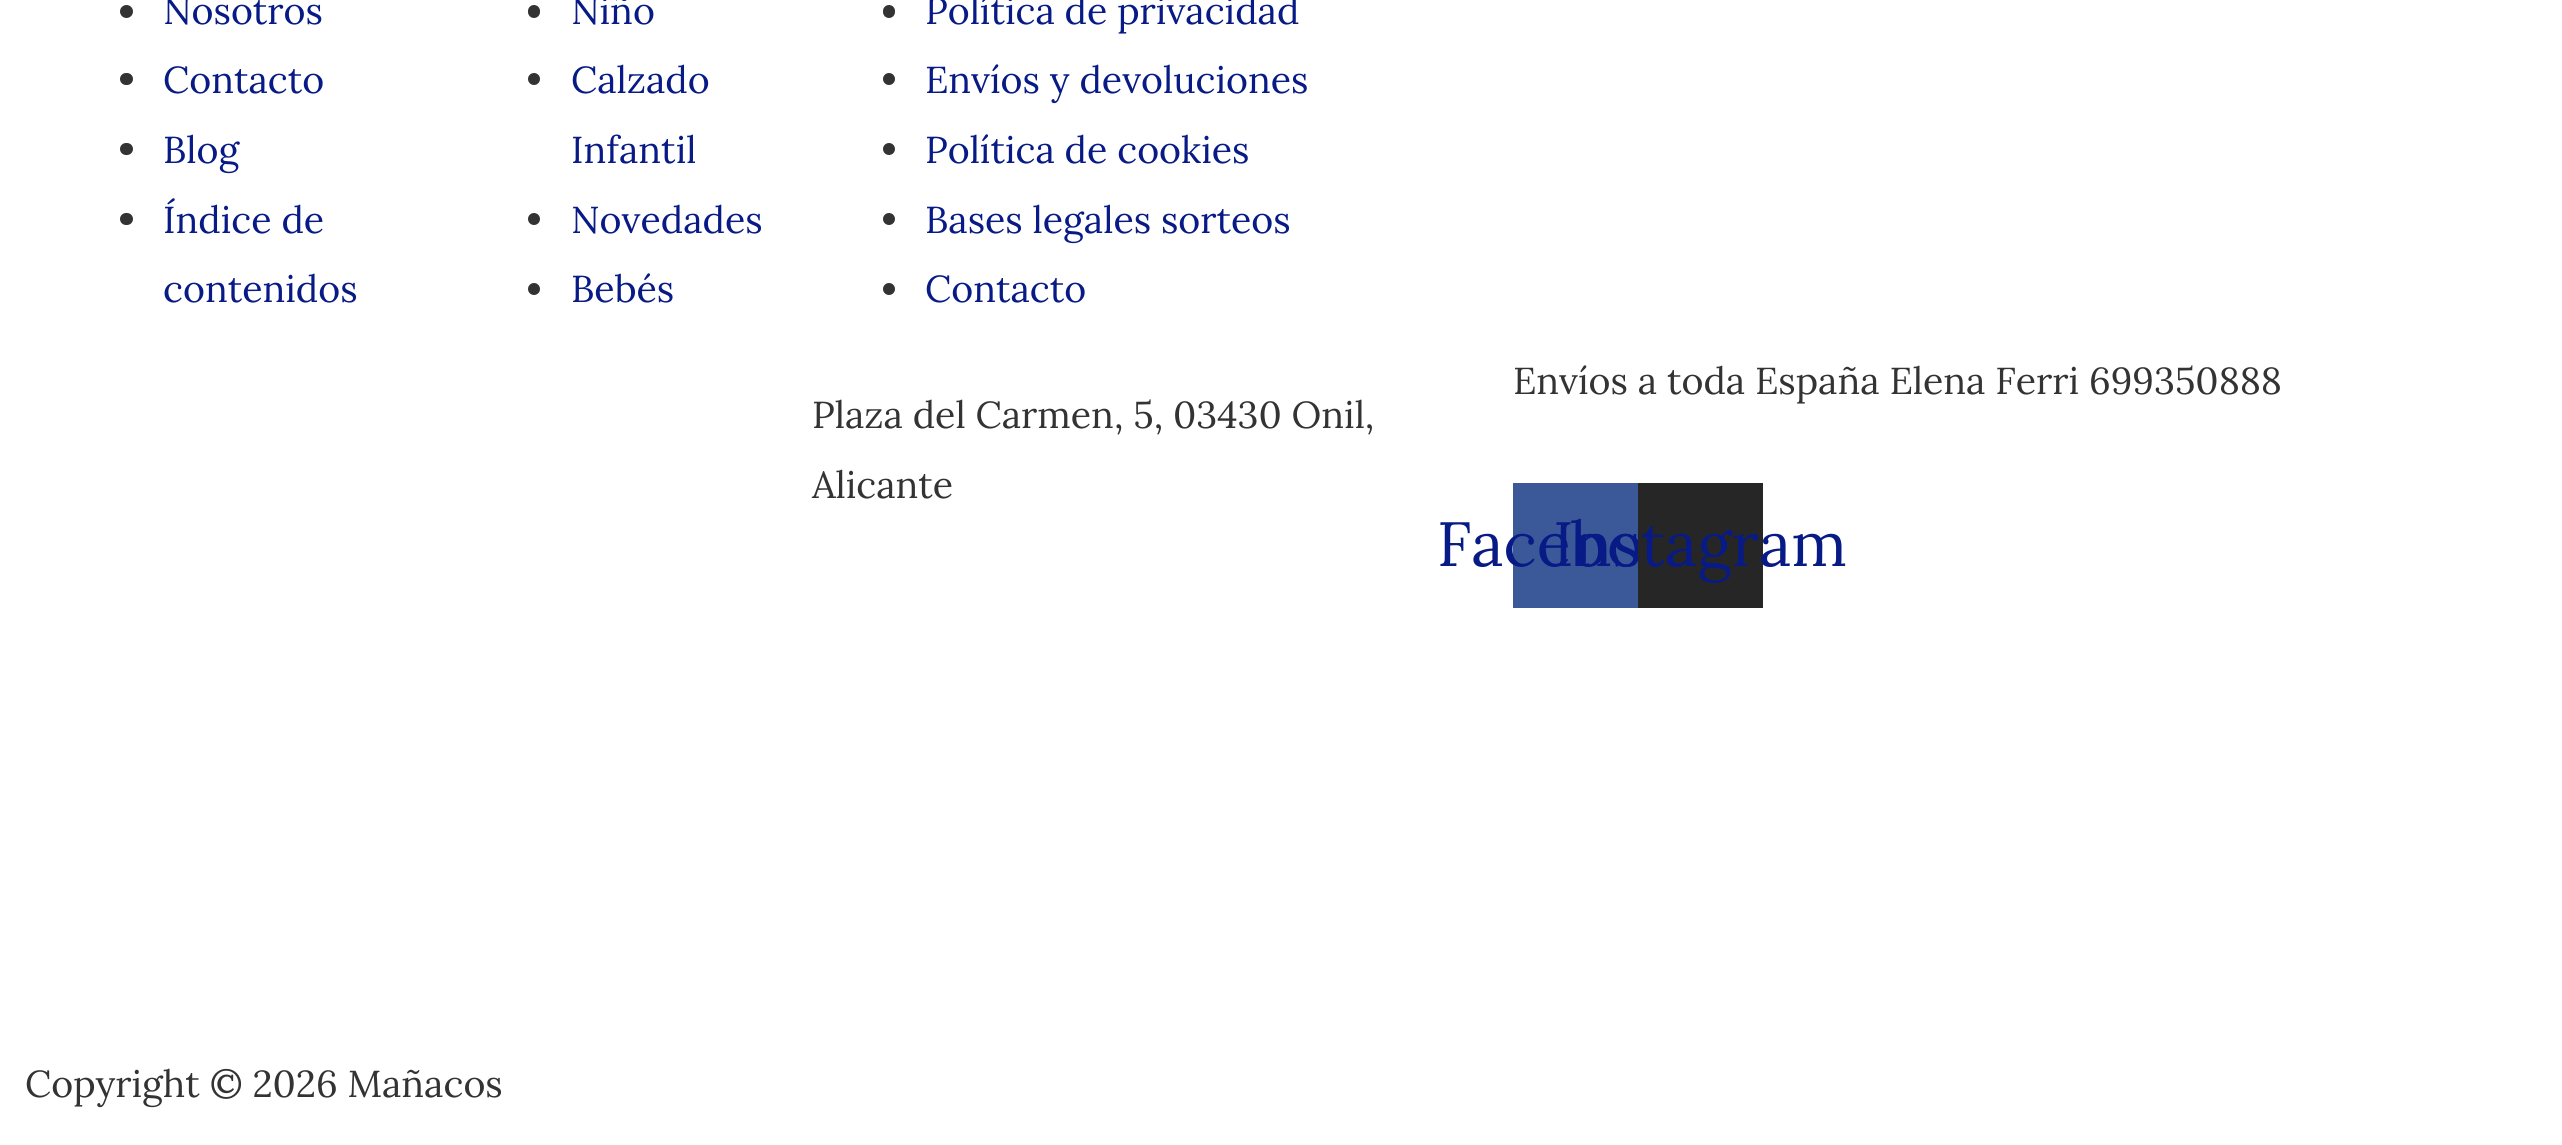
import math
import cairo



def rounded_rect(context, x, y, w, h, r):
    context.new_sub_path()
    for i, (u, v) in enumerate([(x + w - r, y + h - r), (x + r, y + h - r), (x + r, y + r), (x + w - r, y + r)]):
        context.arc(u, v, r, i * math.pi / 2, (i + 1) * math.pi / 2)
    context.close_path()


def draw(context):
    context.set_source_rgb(1, 1, 1)
    context.paint()
    context.set_source_rgb(51 / 255, 51 / 255, 51 / 255)
    context.arc(126.5, 11.5, 6.5, 0, 2 * math.pi)
    context.fill()
    rounded_rect(context, 120, 73, 13, 12, 6)
    context.fill()
    rounded_rect(context, 120, 143, 13, 12, 6)
    context.fill()
    rounded_rect(context, 120, 213, 13, 12, 6)
    context.fill()
    rounded_rect(context, 528, 5, 12, 13, 6)
    context.fill()
    context.arc(534, 79, 6, 0, 2 * math.pi)
    context.fill()
    context.arc(534, 219, 6, 0, 2 * math.pi)
    context.fill()
    context.arc(534, 289, 6, 0, 2 * math.pi)
    context.fill()
    rounded_rect(context, 883, 5, 12, 13, 6)
    context.fill()
    context.arc(889, 79, 6, 0, 2 * math.pi)
    context.fill()
    context.arc(889, 149, 6, 0, 2 * math.pi)
    context.fill()
    context.arc(889, 219, 6, 0, 2 * math.pi)
    context.fill()
    context.arc(889, 289, 6, 0, 2 * math.pi)
    context.fill()
    context.set_source_rgb(59 / 255, 89 / 255, 152 / 255)
    context.rectangle(1513, 483, 125, 125)
    context.fill()
    context.select_font_face("Lora")
    context.set_font_size(37.5)
    context.set_source_rgb(7 / 255, 26 / 255, 133 / 255)
    context.move_to(163, 24)
    context.show_text("Nosotros")
    context.move_to(163, 93)
    context.show_text("Contacto")
    context.move_to(163, 163)
    context.show_text("Blog")
    context.move_to(163, 233)
    context.show_text("Índice de")
    context.move_to(163, 302)
    context.show_text("contenidos")
    context.move_to(571, 24)
    context.show_text("Niño")
    context.move_to(571, 93)
    context.show_text("Calzado")
    context.move_to(571, 163)
    context.show_text("Infantil")
    context.move_to(571, 233)
    context.show_text("Novedades")
    context.move_to(571, 302)
    context.show_text("Bebés")
    context.move_to(925, 24)
    context.show_text("Política de privacidad")
    context.move_to(925, 93)
    context.show_text("Envíos y devoluciones")
    context.move_to(925, 163)
    context.show_text("Política de cookies")
    context.move_to(925, 233)
    context.show_text("Bases legales sorteos")
    context.move_to(925, 302)
    context.show_text("Contacto")
    context.set_source_rgb(51 / 255, 51 / 255, 51 / 255)
    context.move_to(812, 428)
    context.show_text("Plaza del Carmen, 5, 03430 Onil,")
    context.move_to(812, 498)
    context.show_text("Alicante")
    context.move_to(1513, 394)
    context.show_text("Envíos a toda España Elena Ferri 699350888")
    context.set_font_size(62.5)
    context.set_source_rgb(7 / 255, 26 / 255, 133 / 255)
    context.move_to(1437, 566)
    context.show_text("Facebo")
    context.set_source_rgb(38 / 255, 38 / 255, 38 / 255)
    context.rectangle(1638, 483, 125, 125)
    context.fill()
    context.set_source_rgb(7 / 255, 26 / 255, 133 / 255)
    context.move_to(1553, 566)
    context.show_text("Instagram")
    context.set_font_size(37.5)
    context.set_source_rgb(51 / 255, 51 / 255, 51 / 255)
    context.move_to(25, 1097)
    context.show_text("Copyright © 2026 Mañacos")


surface = cairo.ImageSurface(cairo.Format.RGB24, 2562, 1145)
context = cairo.Context(surface)
options = cairo.FontOptions()
options.set_hint_metrics(cairo.HintMetrics.OFF)
options.set_hint_style(cairo.HintStyle.NONE)
context.set_font_options(options)
context.set_miter_limit(4)
draw(context)
surface.write_to_png("out.png")
